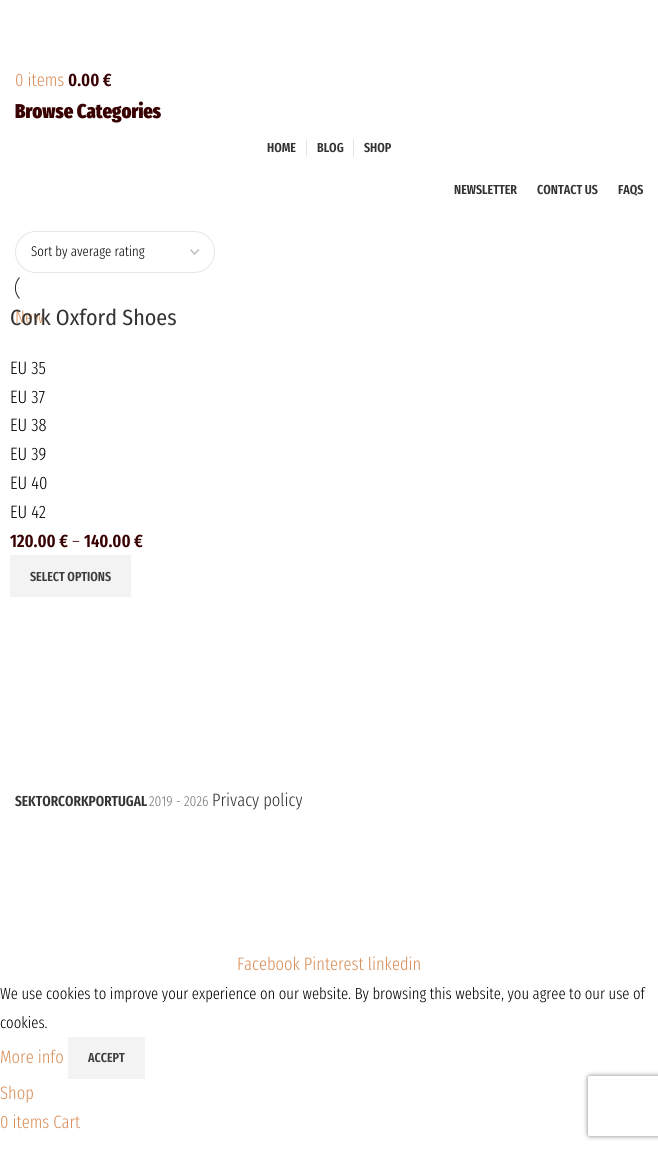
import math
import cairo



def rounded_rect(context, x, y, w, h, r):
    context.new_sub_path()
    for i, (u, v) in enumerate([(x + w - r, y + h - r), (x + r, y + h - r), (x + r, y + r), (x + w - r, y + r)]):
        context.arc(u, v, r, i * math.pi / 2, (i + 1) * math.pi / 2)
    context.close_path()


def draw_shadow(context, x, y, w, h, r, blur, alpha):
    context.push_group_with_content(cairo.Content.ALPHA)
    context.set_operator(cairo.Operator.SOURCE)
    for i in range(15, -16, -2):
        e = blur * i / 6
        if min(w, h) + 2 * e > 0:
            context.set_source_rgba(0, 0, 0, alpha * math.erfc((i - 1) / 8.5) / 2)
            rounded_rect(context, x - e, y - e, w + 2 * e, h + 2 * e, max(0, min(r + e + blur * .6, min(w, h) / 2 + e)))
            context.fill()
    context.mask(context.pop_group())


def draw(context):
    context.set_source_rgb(1, 1, 1)
    context.paint()
    context.set_source_rgb(228 / 255, 228 / 255, 228 / 255)
    context.rectangle(306, 139, 1, 18)
    context.fill()
    context.rectangle(353, 139, 1, 18)
    context.fill()
    context.new_path()
    context.move_to(190.5, 249.5)
    context.line_to(194.5, 254)
    context.line_to(199, 249.5)
    context.set_source_rgb(187 / 255, 187 / 255, 187 / 255)
    context.set_line_width(1.4)
    context.stroke()
    rounded_rect(context, 15.5, 231.5, 199, 41, 20.5)
    context.set_source_rgb(230 / 255, 230 / 255, 230 / 255)
    context.set_line_width(1)
    context.stroke()
    context.new_path()
    context.move_to(19.5, 298.5)
    context.curve_to(14, 292.5, 14, 283.5, 19.5, 277.5)
    context.set_source_rgb(36 / 255, 36 / 255, 36 / 255)
    context.stroke()
    context.set_source_rgb(243 / 255, 243 / 255, 243 / 255)
    context.rectangle(10, 555, 121, 42)
    context.fill()
    context.rectangle(68, 1037, 77, 42)
    context.fill()
    context.save()
    context.set_fill_rule(cairo.FillRule.EVEN_ODD)
    context.new_path()
    context.move_to(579, 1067)
    context.line_to(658, 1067)
    context.line_to(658, 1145)
    context.line_to(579, 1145)
    context.close_path()
    context.move_to(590, 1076)
    context.line_to(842, 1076)
    context.curve_to(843, 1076, 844, 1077, 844, 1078)
    context.line_to(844, 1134)
    context.curve_to(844, 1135, 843, 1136, 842, 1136)
    context.line_to(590, 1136)
    context.curve_to(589, 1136, 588, 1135, 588, 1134)
    context.line_to(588, 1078)
    context.curve_to(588, 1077, 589, 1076, 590, 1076)
    context.close_path()
    context.clip()
    context.set_source_rgb(128 / 255, 128 / 255, 128 / 255)
    draw_shadow(context, 588, 1076, 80, 60, 2, 2.5, 1)
    context.restore()
    context.select_font_face("Fira Sans Extra Condensed Light")
    context.set_font_size(18)
    context.set_source_rgb(216 / 255, 143 / 255, 90 / 255)
    context.move_to(15, 86)
    context.show_text("0 items")
    context.select_font_face("Fira Sans Extra Condensed SemiBold")
    context.set_source_rgb(56 / 255, 0, 0)
    context.move_to(68, 86)
    context.show_text("0.00 €")
    context.select_font_face("Fira Sans Extra Condensed Black")
    context.set_font_size(20)
    context.move_to(15, 118)
    context.show_text("Browse Categories")
    context.select_font_face("Fira Sans Extra Condensed SemiBold")
    context.set_font_size(13)
    context.set_source_rgb(51 / 255, 51 / 255, 51 / 255)
    context.move_to(267, 152)
    context.show_text("HOME")
    context.move_to(317, 152)
    context.show_text("BLOG")
    context.move_to(364, 152)
    context.show_text("SHOP")
    context.move_to(454, 194)
    context.show_text("NEWSLETTER")
    context.move_to(537, 194)
    context.show_text("CONTACT US")
    context.move_to(618, 194)
    context.show_text("FAQS")
    context.select_font_face("Fira Sans Extra Condensed Light")
    context.set_font_size(14)
    context.set_source_rgb(0, 0, 0)
    context.move_to(31, 256)
    context.show_text("Sort by average rating")
    context.set_font_size(18)
    context.move_to(10, 374)
    context.show_text("EU 35")
    context.move_to(10, 403)
    context.show_text("EU 37")
    context.move_to(10, 431)
    context.show_text("EU 38")
    context.move_to(10, 460)
    context.show_text("EU 39")
    context.move_to(10, 489)
    context.show_text("EU 40")
    context.move_to(10, 518)
    context.show_text("EU 42")
    context.select_font_face("Fira Sans Extra Condensed SemiBold")
    context.set_source_rgb(56 / 255, 0, 0)
    context.move_to(10, 547)
    context.show_text("120.00 €")
    context.select_font_face("Fira Sans Extra Condensed Light")
    context.move_to(72, 547)
    context.show_text("–")
    context.select_font_face("Fira Sans Extra Condensed SemiBold")
    context.move_to(84, 547)
    context.show_text("140.00 €")
    context.set_font_size(13)
    context.set_source_rgb(62 / 255, 62 / 255, 62 / 255)
    context.move_to(30, 581)
    context.show_text("SELECT OPTIONS")
    context.select_font_face("Fira Sans Extra Condensed Light")
    context.set_font_size(18)
    context.set_source_rgb(216 / 255, 143 / 255, 90 / 255)
    context.move_to(15, 323)
    context.show_text("New")
    context.select_font_face("Fira Sans Condensed")
    context.set_font_size(22)
    context.set_source_rgb(51 / 255, 51 / 255, 51 / 255)
    context.move_to(10, 325)
    context.show_text("Cork Oxford Shoes")
    context.select_font_face("Fira Sans Extra Condensed SemiBold")
    context.set_font_size(14.5)
    context.move_to(15, 806)
    context.show_text("SEKTORCORKPORTUGAL")
    context.select_font_face("Fira Sans Extra Condensed Light")
    context.set_source_rgb(118 / 255, 118 / 255, 118 / 255)
    context.move_to(149, 806)
    context.show_text("2019 - 2026")
    context.set_font_size(18)
    context.set_source_rgb(51 / 255, 51 / 255, 51 / 255)
    context.move_to(212, 806)
    context.show_text("Privacy policy")
    context.set_source_rgb(216 / 255, 143 / 255, 90 / 255)
    context.move_to(237, 970)
    context.show_text("Facebook Pinterest linkedin")
    context.set_font_size(16)
    context.set_source_rgb(0, 0, 0)
    context.move_to(0, 999)
    context.show_text("We use cookies to improve your experience on our website. By browsing this website, you agree to our use of")
    context.move_to(0, 1028)
    context.show_text("cookies.")
    context.set_font_size(18)
    context.set_source_rgb(216 / 255, 143 / 255, 90 / 255)
    context.move_to(0, 1063)
    context.show_text("More info")
    context.select_font_face("Fira Sans Extra Condensed SemiBold")
    context.set_font_size(13)
    context.set_source_rgb(62 / 255, 62 / 255, 62 / 255)
    context.move_to(88, 1062)
    context.show_text("ACCEPT")
    context.select_font_face("Fira Sans Extra Condensed Light")
    context.set_font_size(18)
    context.set_source_rgb(216 / 255, 143 / 255, 90 / 255)
    context.move_to(0, 1099)
    context.show_text("Shop")
    context.move_to(0, 1128)
    context.show_text("0 items Cart")


surface = cairo.ImageSurface(cairo.Format.RGB24, 658, 1150)
context = cairo.Context(surface)
options = cairo.FontOptions()
options.set_hint_metrics(cairo.HintMetrics.OFF)
options.set_hint_style(cairo.HintStyle.NONE)
context.set_font_options(options)
context.set_miter_limit(4)
draw(context)
surface.write_to_png("out.png")
